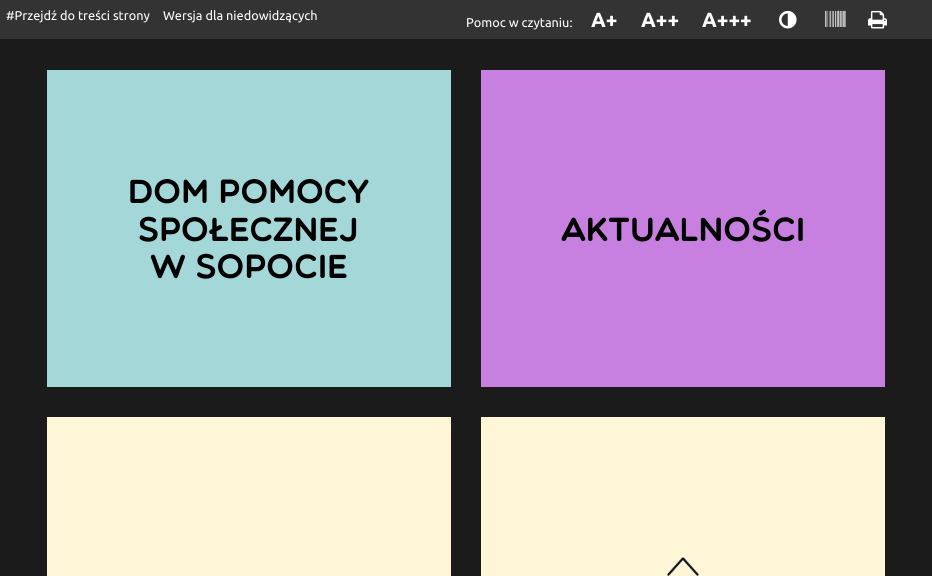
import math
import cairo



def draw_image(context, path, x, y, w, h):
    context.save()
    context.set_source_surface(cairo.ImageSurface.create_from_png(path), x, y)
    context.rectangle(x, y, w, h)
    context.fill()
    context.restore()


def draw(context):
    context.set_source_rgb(27 / 255, 27 / 255, 27 / 255)
    context.paint()
    context.set_source_rgb(51 / 255, 51 / 255, 51 / 255)
    context.rectangle(0, 0, 932, 39)
    context.fill()
    draw_image(context, "images/1.png", 779, 10, 18, 19)
    draw_image(context, "images/2.png", 825, 10, 21, 17)
    draw_image(context, "images/3.png", 868, 10, 19, 19)
    context.set_source_rgb(164 / 255, 215 / 255, 216 / 255)
    context.rectangle(47, 70, 404, 317)
    context.fill()
    context.set_source_rgb(200 / 255, 128 / 255, 224 / 255)
    context.rectangle(481, 70, 404, 317)
    context.fill()
    context.set_source_rgb(1, 245 / 255, 215 / 255)
    context.rectangle(47, 417, 404, 159)
    context.fill()
    context.rectangle(481, 417, 404, 159)
    context.fill()
    draw_image(context, "images/4.png", 667, 557, 32, 19)
    context.select_font_face("Ubuntu")
    context.set_font_size(12.75)
    context.set_source_rgb(1, 1, 1)
    context.move_to(6, 20)
    context.show_text("#Przejdź do treści strony")
    context.move_to(163, 20)
    context.show_text("Wersja dla niedowidzących")
    context.move_to(466, 27)
    context.show_text("Pomoc w czytaniu:")
    context.select_font_face("Ubuntu", cairo.FontSlant.NORMAL, cairo.FontWeight.BOLD)
    context.set_font_size(20.5)
    context.move_to(591, 27)
    context.show_text("A+")
    context.move_to(641, 27)
    context.show_text("A++")
    context.move_to(702, 27)
    context.show_text("A+++")
    context.select_font_face("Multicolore", cairo.FontSlant.NORMAL, cairo.FontWeight.BOLD)
    context.set_font_size(33.5)
    context.set_source_rgb(0, 0, 0)
    context.move_to(128, 203)
    context.show_text("Dom Pomocy")
    context.move_to(138, 241)
    context.show_text("Społecznej")
    context.move_to(150, 278)
    context.show_text("w Sopocie")
    context.move_to(561, 241)
    context.show_text("Aktualności")


surface = cairo.ImageSurface(cairo.Format.RGB24, 932, 576)
context = cairo.Context(surface)
options = cairo.FontOptions()
options.set_hint_metrics(cairo.HintMetrics.OFF)
options.set_hint_style(cairo.HintStyle.NONE)
context.set_font_options(options)
context.set_miter_limit(4)
draw(context)
surface.write_to_png("out.png")
